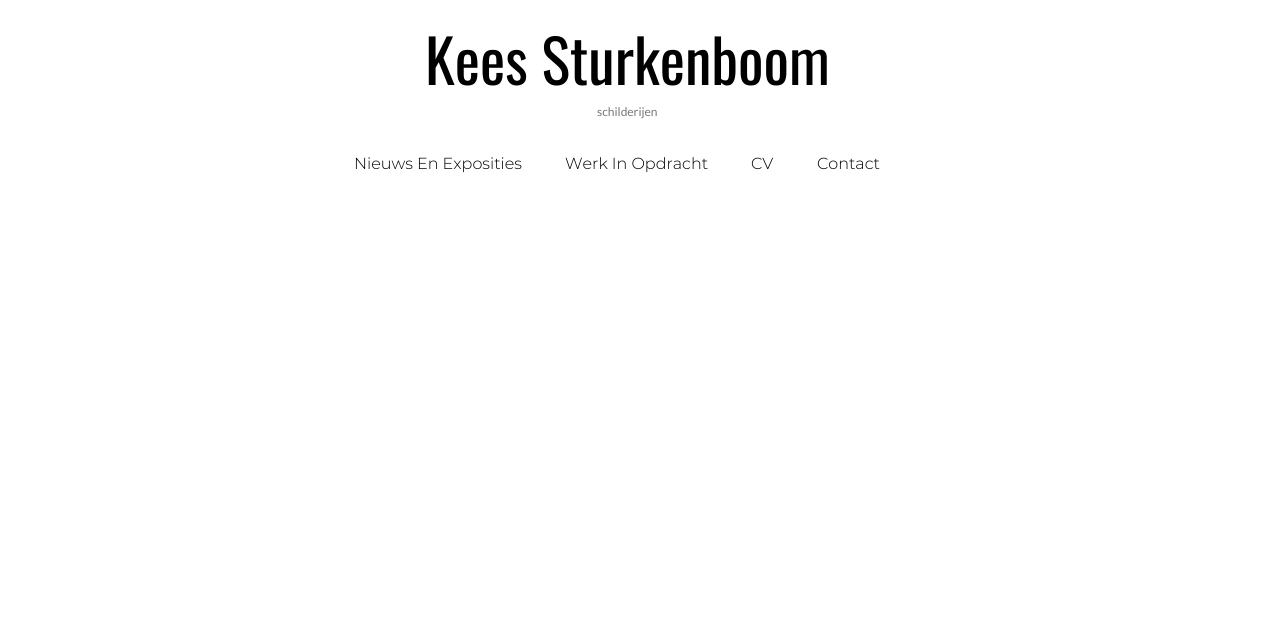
import math
import cairo



def draw(context):
    context.set_source_rgb(1, 1, 1)
    context.paint()
    context.select_font_face("Oswald")
    context.set_font_size(60)
    context.set_source_rgb(0, 0, 0)
    context.move_to(425, 85)
    context.show_text("Kees Sturkenboom")
    context.select_font_face("Lato")
    context.set_font_size(12)
    context.set_source_rgb(119 / 255, 119 / 255, 119 / 255)
    context.move_to(597, 116)
    context.show_text("schilderijen")
    context.select_font_face("Montserrat Light")
    context.set_font_size(16)
    context.set_source_rgb(0, 0, 0)
    context.move_to(354, 169)
    context.show_text("Nieuws En Exposities")
    context.move_to(565, 169)
    context.show_text("Werk In Opdracht")
    context.move_to(751, 169)
    context.show_text("CV")
    context.move_to(817, 169)
    context.show_text("Contact")


surface = cairo.ImageSurface(cairo.Format.RGB24, 1274, 637)
context = cairo.Context(surface)
options = cairo.FontOptions()
options.set_hint_metrics(cairo.HintMetrics.OFF)
options.set_hint_style(cairo.HintStyle.NONE)
context.set_font_options(options)
context.set_miter_limit(4)
draw(context)
surface.write_to_png("out.png")
